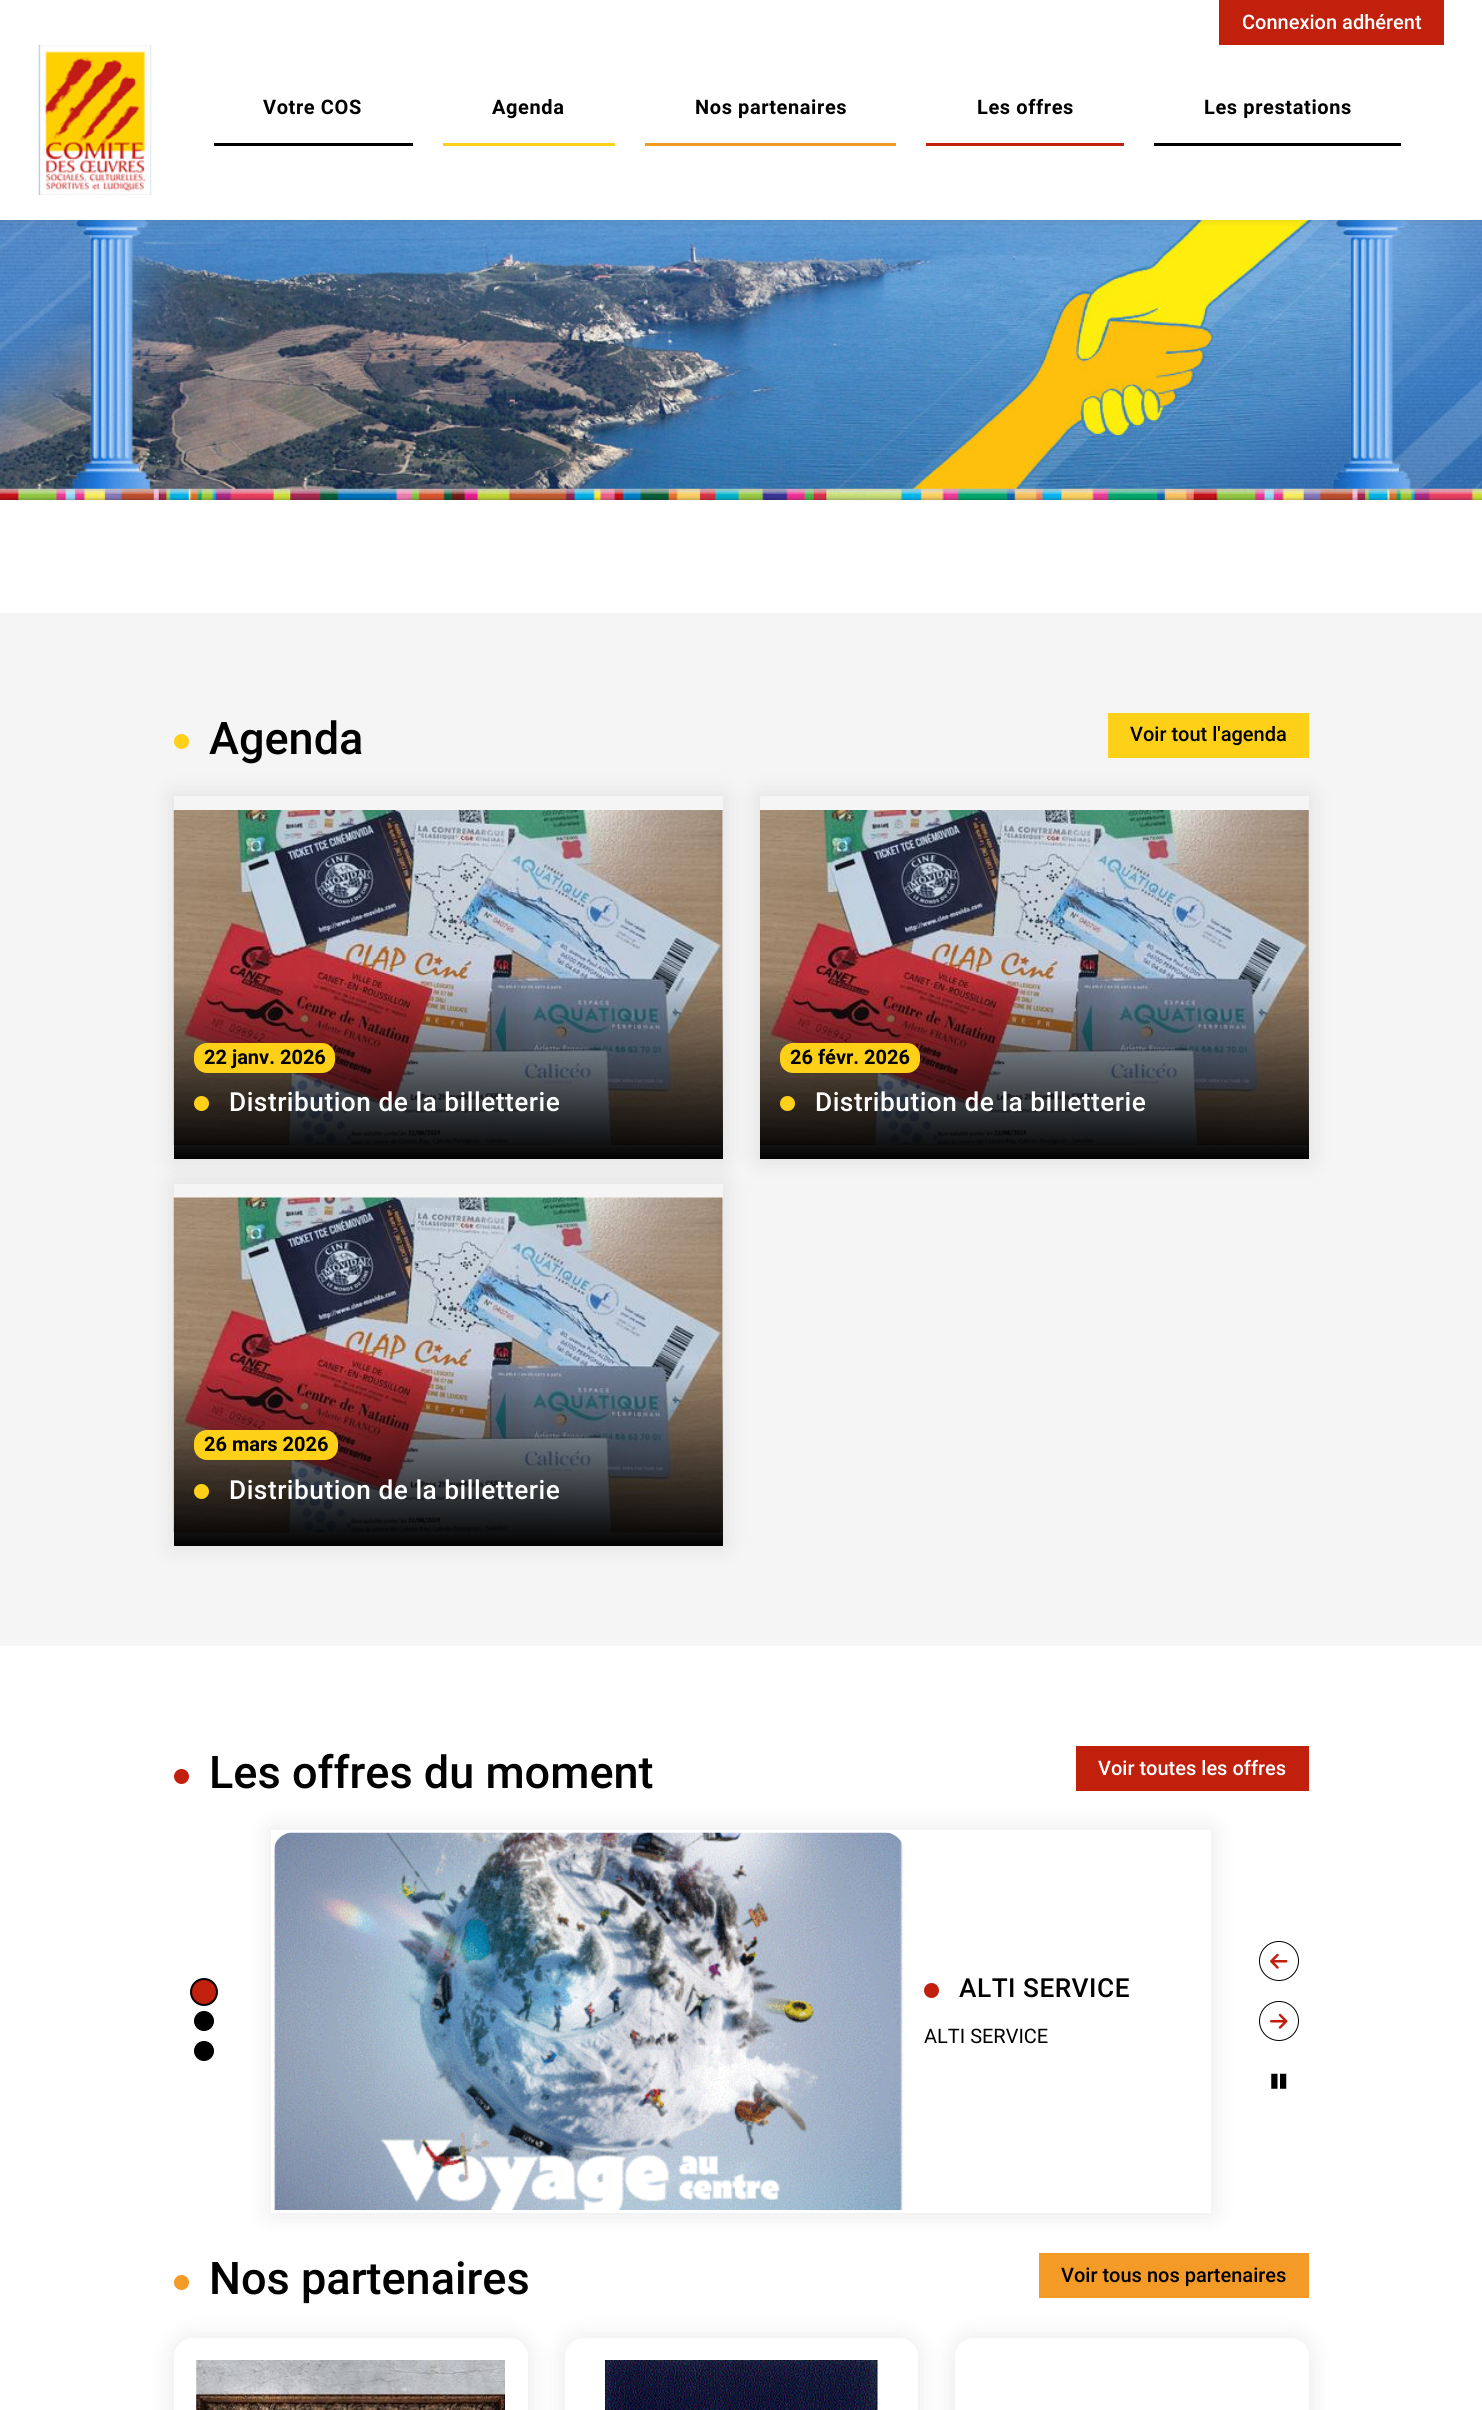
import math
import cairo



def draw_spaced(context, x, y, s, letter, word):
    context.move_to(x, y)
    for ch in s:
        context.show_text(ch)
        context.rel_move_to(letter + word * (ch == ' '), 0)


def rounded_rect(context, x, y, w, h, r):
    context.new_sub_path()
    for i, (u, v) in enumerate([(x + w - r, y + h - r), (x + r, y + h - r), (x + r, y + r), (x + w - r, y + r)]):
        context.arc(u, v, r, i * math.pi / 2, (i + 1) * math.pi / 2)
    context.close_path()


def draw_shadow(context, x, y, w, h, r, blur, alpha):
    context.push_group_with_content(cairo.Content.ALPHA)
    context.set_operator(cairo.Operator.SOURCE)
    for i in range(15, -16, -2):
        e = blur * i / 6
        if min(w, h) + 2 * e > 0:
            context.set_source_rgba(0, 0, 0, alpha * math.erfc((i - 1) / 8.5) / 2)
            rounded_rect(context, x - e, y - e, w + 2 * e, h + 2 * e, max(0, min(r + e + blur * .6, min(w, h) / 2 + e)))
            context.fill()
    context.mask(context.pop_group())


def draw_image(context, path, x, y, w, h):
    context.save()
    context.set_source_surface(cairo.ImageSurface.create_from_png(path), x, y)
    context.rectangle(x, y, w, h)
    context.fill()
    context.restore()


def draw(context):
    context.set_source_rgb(1, 1, 1)
    context.paint()
    draw_image(context, "images/2.png", 0, 220, 1482, 280)
    context.save()
    context.rectangle(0, 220, 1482, 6)
    context.clip()
    context.set_source_rgb(90 / 255, 90 / 255, 90 / 255)
    draw_shadow(context, -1, 0, 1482, 220, 0, 4.5, 0.2)
    context.restore()
    context.set_source_rgb(193 / 255, 32 / 255, 13 / 255)
    context.rectangle(1219, 0, 225, 45)
    context.fill()
    draw_image(context, "images/1.png", 38, 45, 114, 150)
    context.set_source_rgb(0, 0, 0)
    context.rectangle(214, 143, 199, 3)
    context.fill()
    context.set_source_rgb(254 / 255, 208 / 255, 24 / 255)
    context.rectangle(443, 143, 172, 3)
    context.fill()
    context.set_source_rgb(244 / 255, 155 / 255, 39 / 255)
    context.rectangle(645, 143, 251, 3)
    context.fill()
    context.set_source_rgb(193 / 255, 32 / 255, 13 / 255)
    context.rectangle(926, 143, 198, 3)
    context.fill()
    context.set_source_rgb(0, 0, 0)
    context.rectangle(1154, 143, 247, 3)
    context.fill()
    context.set_source_rgb(245 / 255, 245 / 255, 245 / 255)
    context.rectangle(0, 613, 1482, 1033)
    context.fill()
    context.set_source_rgb(254 / 255, 208 / 255, 24 / 255)
    context.arc(181.5, 741.5, 7.5, 0, 2 * math.pi)
    context.fill()
    context.rectangle(1108, 713, 201, 45)
    context.fill()
    context.save()
    context.set_fill_rule(cairo.FillRule.EVEN_ODD)
    context.new_path()
    context.move_to(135, 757)
    context.line_to(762, 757)
    context.line_to(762, 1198)
    context.line_to(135, 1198)
    context.close_path()
    context.move_to(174, 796)
    context.line_to(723, 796)
    context.line_to(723, 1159)
    context.line_to(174, 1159)
    context.close_path()
    context.clip()
    context.set_source_rgb(0, 0, 0)
    draw_shadow(context, 174, 796, 549, 363, 0, 12.5, 0.1)
    context.restore()
    draw_image(context, "images/3.png", 173, 810, 550, 335)
    gradient = cairo.LinearGradient(448, 796, 448, 1159)
    gradient.add_color_stop_rgba(0, 0, 0, 0, 0)
    gradient.add_color_stop_rgba(0.5, 0, 0, 0, 0)
    gradient.add_color_stop_rgba(1, 0, 0, 0, 1)
    context.set_source(gradient)
    context.rectangle(174, 981, 549, 178)
    context.fill()
    context.set_source_rgb(254 / 255, 208 / 255, 24 / 255)
    rounded_rect(context, 194, 1043, 141, 30, 13)
    context.fill()
    context.arc(201.5, 1103.5, 7.5, 0, 2 * math.pi)
    context.fill()
    context.save()
    context.set_fill_rule(cairo.FillRule.EVEN_ODD)
    context.new_path()
    context.move_to(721, 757)
    context.line_to(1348, 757)
    context.line_to(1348, 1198)
    context.line_to(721, 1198)
    context.close_path()
    context.move_to(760, 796)
    context.line_to(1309, 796)
    context.line_to(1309, 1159)
    context.line_to(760, 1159)
    context.close_path()
    context.clip()
    context.set_source_rgb(0, 0, 0)
    draw_shadow(context, 760, 796, 549, 363, 0, 12.5, 0.1)
    context.restore()
    draw_image(context, "images/4.png", 760, 810, 549, 335)
    gradient = cairo.LinearGradient(1034, 796, 1034, 1159)
    gradient.add_color_stop_rgba(0, 0, 0, 0, 0)
    gradient.add_color_stop_rgba(0.5, 0, 0, 0, 0)
    gradient.add_color_stop_rgba(1, 0, 0, 0, 1)
    context.set_source(gradient)
    context.rectangle(760, 981, 549, 178)
    context.fill()
    context.set_source_rgb(254 / 255, 208 / 255, 24 / 255)
    rounded_rect(context, 780, 1043, 140, 30, 13)
    context.fill()
    context.arc(787.5, 1103.5, 7.5, 0, 2 * math.pi)
    context.fill()
    context.save()
    context.set_fill_rule(cairo.FillRule.EVEN_ODD)
    context.new_path()
    context.move_to(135, 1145)
    context.line_to(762, 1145)
    context.line_to(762, 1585)
    context.line_to(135, 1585)
    context.close_path()
    context.move_to(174, 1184)
    context.line_to(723, 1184)
    context.line_to(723, 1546)
    context.line_to(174, 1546)
    context.close_path()
    context.clip()
    context.set_source_rgb(0, 0, 0)
    draw_shadow(context, 174, 1184, 549, 362, 0, 12.5, 0.1)
    context.restore()
    draw_image(context, "images/5.png", 173, 1197, 550, 336)
    gradient = cairo.LinearGradient(448, 1184, 448, 1546)
    gradient.add_color_stop_rgba(0, 0, 0, 0, 0)
    gradient.add_color_stop_rgba(0.5, 0, 0, 0, 0)
    gradient.add_color_stop_rgba(1, 0, 0, 0, 1)
    context.set_source(gradient)
    context.rectangle(174, 1369, 549, 177)
    context.fill()
    context.set_source_rgb(254 / 255, 208 / 255, 24 / 255)
    rounded_rect(context, 194, 1430, 144, 30, 13)
    context.fill()
    context.arc(201.5, 1491.5, 7.5, 0, 2 * math.pi)
    context.fill()
    context.set_source_rgb(193 / 255, 32 / 255, 13 / 255)
    context.arc(181.5, 1776.5, 7.5, 0, 2 * math.pi)
    context.fill()
    context.rectangle(1076, 1746, 233, 45)
    context.fill()
    context.arc(204, 1992, 13, 0, 2 * math.pi)
    context.fill_preserve()
    context.set_source_rgb(0, 0, 0)
    context.stroke()
    context.arc(204, 2021, 9.5, 0, 2 * math.pi)
    context.fill_preserve()
    context.set_line_width(1)
    context.stroke()
    context.arc(204, 2051, 9.5, 0, 2 * math.pi)
    context.fill_preserve()
    context.stroke()
    context.save()
    context.set_fill_rule(cairo.FillRule.EVEN_ODD)
    context.new_path()
    context.move_to(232, 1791)
    context.line_to(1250, 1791)
    context.line_to(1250, 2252)
    context.line_to(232, 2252)
    context.close_path()
    context.move_to(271, 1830)
    context.line_to(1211, 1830)
    context.line_to(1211, 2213)
    context.line_to(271, 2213)
    context.close_path()
    context.clip()
    context.set_source_rgb(0, 0, 0)
    draw_shadow(context, 271, 1830, 940, 383, 0, 12.5, 0.1)
    context.restore()
    draw_image(context, "images/6.png", 273, 1832, 630, 378)
    context.set_source_rgb(193 / 255, 32 / 255, 13 / 255)
    context.arc(931.5, 1990.5, 7.5, 0, 2 * math.pi)
    context.fill()
    context.arc(1279, 1961, 19.5, 0, 2 * math.pi)
    context.set_source_rgb(0, 0, 0)
    context.stroke()
    draw_image(context, "images/7.png", 1270, 1953, 18, 16)
    context.arc(1279, 2021, 19.5, 0, 2 * math.pi)
    context.stroke()
    draw_image(context, "images/8.png", 1270, 2013, 18, 16)
    draw_image(context, "images/9.png", 1271, 2073, 16, 16)
    context.set_source_rgb(244 / 255, 155 / 255, 39 / 255)
    context.arc(181.5, 2282.5, 7.5, 0, 2 * math.pi)
    context.fill()
    context.rectangle(1039, 2253, 270, 45)
    context.fill()
    context.save()
    context.set_fill_rule(cairo.FillRule.EVEN_ODD)
    context.new_path()
    context.move_to(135, 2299)
    context.line_to(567, 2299)
    context.line_to(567, 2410)
    context.line_to(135, 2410)
    context.close_path()
    context.move_to(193, 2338)
    context.line_to(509, 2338)
    context.curve_to(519.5, 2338, 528, 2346.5, 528, 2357)
    context.line_to(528, 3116)
    context.curve_to(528, 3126.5, 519.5, 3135, 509, 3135)
    context.line_to(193, 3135)
    context.curve_to(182.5, 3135, 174, 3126.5, 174, 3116)
    context.line_to(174, 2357)
    context.curve_to(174, 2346.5, 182.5, 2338, 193, 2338)
    context.close_path()
    context.clip()
    context.set_source_rgb(0, 0, 0)
    draw_shadow(context, 174, 2338, 354, 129, 19, 12.5, 0.1)
    context.restore()
    draw_image(context, "images/10.png", 196, 2360, 309, 50)
    context.save()
    context.set_fill_rule(cairo.FillRule.EVEN_ODD)
    context.new_path()
    context.move_to(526, 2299)
    context.line_to(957, 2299)
    context.line_to(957, 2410)
    context.line_to(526, 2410)
    context.close_path()
    context.move_to(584, 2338)
    context.line_to(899, 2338)
    context.curve_to(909.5, 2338, 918, 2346.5, 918, 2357)
    context.line_to(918, 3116)
    context.curve_to(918, 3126.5, 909.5, 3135, 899, 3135)
    context.line_to(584, 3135)
    context.curve_to(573.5, 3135, 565, 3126.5, 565, 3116)
    context.line_to(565, 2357)
    context.curve_to(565, 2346.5, 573.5, 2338, 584, 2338)
    context.close_path()
    context.clip()
    context.set_source_rgb(0, 0, 0)
    draw_shadow(context, 565, 2338, 353, 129, 19, 12.5, 0.1)
    context.restore()
    draw_image(context, "images/11.png", 605, 2360, 273, 50)
    context.save()
    context.set_fill_rule(cairo.FillRule.EVEN_ODD)
    context.new_path()
    context.move_to(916, 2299)
    context.line_to(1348, 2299)
    context.line_to(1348, 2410)
    context.line_to(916, 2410)
    context.close_path()
    context.move_to(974, 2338)
    context.line_to(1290, 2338)
    context.curve_to(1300.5, 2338, 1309, 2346.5, 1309, 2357)
    context.line_to(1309, 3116)
    context.curve_to(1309, 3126.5, 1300.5, 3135, 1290, 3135)
    context.line_to(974, 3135)
    context.curve_to(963.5, 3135, 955, 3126.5, 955, 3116)
    context.line_to(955, 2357)
    context.curve_to(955, 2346.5, 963.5, 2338, 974, 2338)
    context.close_path()
    context.clip()
    context.set_source_rgb(0, 0, 0)
    draw_shadow(context, 955, 2338, 354, 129, 19, 12.5, 0.1)
    context.restore()
    context.select_font_face("Roboto Medium")
    context.set_font_size(20)
    context.set_source_rgb(1, 1, 1)
    context.move_to(1242, 29)
    context.show_text("Connexion adhérent")
    context.select_font_face("Roboto", cairo.FontSlant.NORMAL, cairo.FontWeight.BOLD)
    context.set_source_rgb(0, 0, 0)
    draw_spaced(context, 263, 114, "Votre COS", 0.6, 0)
    draw_spaced(context, 492, 114, "Agenda", 0.6, 0)
    draw_spaced(context, 695, 114, "Nos partenaires", 0.6, 0)
    draw_spaced(context, 977, 114, "Les offres", 0.6, 0)
    draw_spaced(context, 1204, 114, "Les prestations", 0.6, 0)
    context.select_font_face("Roboto Medium")
    context.set_font_size(45)
    context.move_to(209, 754)
    context.show_text("Agenda")
    context.set_font_size(20)
    context.move_to(1130, 741)
    context.show_text("Voir tout l'agenda")
    context.select_font_face("Roboto", cairo.FontSlant.NORMAL, cairo.FontWeight.BOLD)
    context.move_to(204, 1064)
    context.show_text("22 janv. 2026")
    context.select_font_face("Roboto Medium")
    context.set_font_size(26.25)
    context.set_source_rgb(1, 1, 1)
    draw_spaced(context, 229, 1111, "Distribution de la billetterie", 0.5, 0)
    context.select_font_face("Roboto", cairo.FontSlant.NORMAL, cairo.FontWeight.BOLD)
    context.set_font_size(20)
    context.set_source_rgb(0, 0, 0)
    context.move_to(790, 1064)
    context.show_text("26 févr. 2026")
    context.select_font_face("Roboto Medium")
    context.set_font_size(26.25)
    context.set_source_rgb(1, 1, 1)
    draw_spaced(context, 815, 1111, "Distribution de la billetterie", 0.5, 0)
    context.select_font_face("Roboto", cairo.FontSlant.NORMAL, cairo.FontWeight.BOLD)
    context.set_font_size(20)
    context.set_source_rgb(0, 0, 0)
    context.move_to(204, 1451)
    context.show_text("26 mars 2026")
    context.select_font_face("Roboto Medium")
    context.set_font_size(26.25)
    context.set_source_rgb(1, 1, 1)
    draw_spaced(context, 229, 1499, "Distribution de la billetterie", 0.5, 0)
    context.set_font_size(45)
    context.set_source_rgb(0, 0, 0)
    context.move_to(209, 1788)
    context.show_text("Les offres du moment")
    context.set_font_size(20)
    context.set_source_rgb(1, 1, 1)
    context.move_to(1098, 1775)
    context.show_text("Voir toutes les offres")
    context.set_font_size(26.25)
    context.set_source_rgb(0, 0, 0)
    draw_spaced(context, 959, 1997, "ALTI SERVICE", 0.5, 0)
    context.select_font_face("Roboto")
    context.set_font_size(20)
    context.move_to(924, 2043)
    context.show_text("ALTI SERVICE")
    context.select_font_face("Roboto Medium")
    context.set_font_size(45)
    context.move_to(209, 2294)
    context.show_text("Nos partenaires")
    context.set_font_size(20)
    context.move_to(1061, 2282)
    context.show_text("Voir tous nos partenaires")


surface = cairo.ImageSurface(cairo.Format.RGB24, 1482, 2410)
context = cairo.Context(surface)
options = cairo.FontOptions()
options.set_hint_metrics(cairo.HintMetrics.OFF)
options.set_hint_style(cairo.HintStyle.NONE)
context.set_font_options(options)
context.set_miter_limit(4)
draw(context)
surface.write_to_png("out.png")
